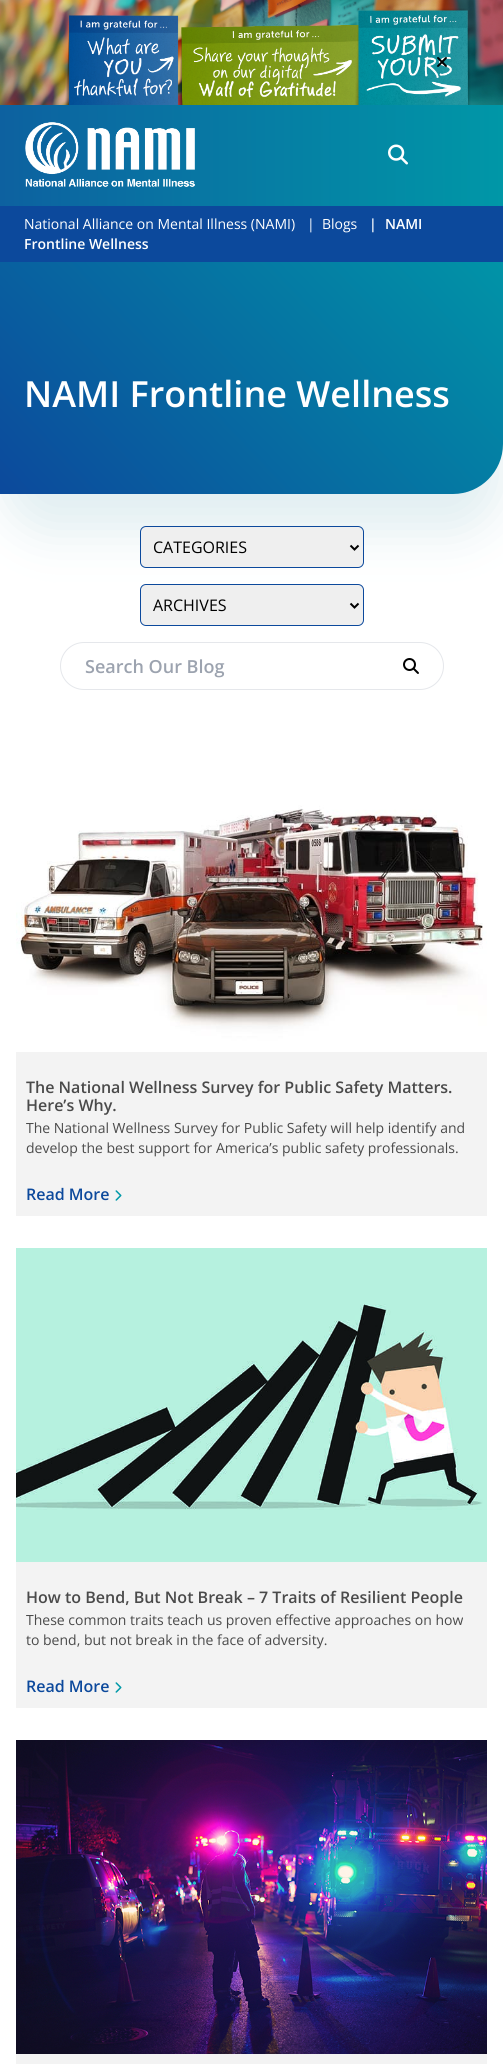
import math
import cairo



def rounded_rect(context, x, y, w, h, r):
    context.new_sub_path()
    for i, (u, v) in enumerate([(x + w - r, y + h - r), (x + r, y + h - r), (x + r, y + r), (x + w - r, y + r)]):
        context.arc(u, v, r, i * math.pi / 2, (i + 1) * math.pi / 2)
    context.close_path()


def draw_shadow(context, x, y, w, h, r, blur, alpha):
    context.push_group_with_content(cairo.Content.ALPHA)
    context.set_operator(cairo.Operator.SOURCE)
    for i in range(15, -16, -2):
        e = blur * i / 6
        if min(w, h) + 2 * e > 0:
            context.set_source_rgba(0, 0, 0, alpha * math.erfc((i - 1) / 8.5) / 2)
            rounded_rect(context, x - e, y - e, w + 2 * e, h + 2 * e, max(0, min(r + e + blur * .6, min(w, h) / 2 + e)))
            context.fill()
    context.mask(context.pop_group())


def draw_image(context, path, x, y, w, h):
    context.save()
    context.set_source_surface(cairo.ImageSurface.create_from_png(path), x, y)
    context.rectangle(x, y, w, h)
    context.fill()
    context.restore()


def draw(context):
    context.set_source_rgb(1, 1, 1)
    context.paint()
    draw_image(context, "images/1.png", 0, 0, 503, 105)
    draw_image(context, "images/2.png", 437, 57, 10, 10)
    context.set_source_rgb(183 / 255, 215 / 255, 222 / 255)
    draw_shadow(context, 0, 246, 503, 288, 50, 22.5, 0.4)
    gradient = cairo.LinearGradient(0, 156, 503, 155)
    gradient.add_color_stop_rgba(0, 13 / 255, 97 / 255, 160 / 255, 1)
    gradient.add_color_stop_rgba(1, 0, 151 / 255, 167 / 255, 1)
    context.set_source(gradient)
    context.rectangle(0, 105, 503, 101)
    context.fill()
    draw_image(context, "images/3.png", 25, 122, 170, 65)
    draw_image(context, "images/4.png", 388, 144, 20, 21)
    gradient = cairo.LinearGradient(48, 544, 455, 156)
    gradient.add_color_stop_rgba(0, 12 / 255, 73 / 255, 156 / 255, 1)
    gradient.add_color_stop_rgba(1, 0, 153 / 255, 168 / 255, 1)
    context.set_source(gradient)
    context.new_path()
    context.move_to(0, 206)
    context.line_to(503, 206)
    context.line_to(503, 444)
    context.curve_to(503, 471.5, 480.5, 494, 453, 494)
    context.line_to(0, 494)
    context.close_path()
    context.fill()
    context.set_source_rgb(12 / 255, 73 / 255, 156 / 255)
    context.rectangle(0, 206, 503, 56)
    context.fill()
    context.set_source_rgb(239 / 255, 239 / 255, 239 / 255)
    rounded_rect(context, 140.5, 526.5, 223, 41, 5.5)
    context.fill_preserve()
    context.set_source_rgb(12 / 255, 73 / 255, 156 / 255)
    context.set_line_width(1)
    context.stroke()
    context.new_path()
    context.move_to(350.5, 545.5)
    context.line_to(354.5, 549.5)
    context.line_to(358.5, 545.5)
    context.set_source_rgb(0, 0, 0)
    context.set_line_width(2)
    context.stroke()
    context.set_source_rgb(239 / 255, 239 / 255, 239 / 255)
    rounded_rect(context, 140.5, 584.5, 223, 41, 5.5)
    context.fill_preserve()
    context.set_source_rgb(12 / 255, 73 / 255, 156 / 255)
    context.set_line_width(1)
    context.stroke()
    context.new_path()
    context.move_to(350.5, 603.5)
    context.line_to(354.5, 607.5)
    context.line_to(358.5, 603.5)
    context.set_source_rgb(0, 0, 0)
    context.set_line_width(2)
    context.stroke()
    rounded_rect(context, 60.5, 642.5, 383, 47, 23.5)
    context.set_source_rgb(229 / 255, 231 / 255, 235 / 255)
    context.set_line_width(1)
    context.stroke()
    draw_image(context, "images/5.png", 403, 658, 16, 16)
    context.set_source_rgb(243 / 255, 243 / 255, 243 / 255)
    context.rectangle(16, 1052, 471, 164)
    context.fill()
    draw_image(context, "images/6.png", 16, 738, 471, 314)
    draw_image(context, "images/7.png", 115, 1190, 7, 11)
    context.rectangle(16, 1562, 471, 146)
    context.fill()
    draw_image(context, "images/8.png", 16, 1248, 471, 314)
    draw_image(context, "images/7.png", 115, 1682, 7, 11)
    context.rectangle(16, 2054, 471, 10)
    context.fill()
    draw_image(context, "images/9.png", 16, 1740, 471, 314)
    context.select_font_face("Open Sans")
    context.set_font_size(14)
    context.set_source_rgb(1, 1, 1)
    context.move_to(24, 229)
    context.show_text("National Alliance on Mental Illness (NAMI)")
    context.move_to(307, 229)
    context.show_text("|")
    context.move_to(322, 229)
    context.show_text("Blogs")
    context.select_font_face("Open Sans SemiBold")
    context.move_to(369, 229)
    context.show_text("|")
    context.move_to(385, 229)
    context.show_text("NAMI")
    context.move_to(24, 249)
    context.show_text("Frontline Wellness")
    context.set_font_size(36)
    context.move_to(24, 407)
    context.show_text("NAMI Frontline Wellness")
    context.select_font_face("Open Sans")
    context.set_font_size(16)
    context.set_source_rgb(0, 0, 0)
    context.move_to(153, 553)
    context.show_text("CATEGORIES")
    context.move_to(153, 611)
    context.show_text("ARCHIVES")
    context.select_font_face("Open Sans SemiBold")
    context.set_font_size(18)
    context.set_source_rgb(156 / 255, 163 / 255, 175 / 255)
    context.move_to(85, 673)
    context.show_text("Search Our Blog")
    context.set_font_size(16)
    context.set_source_rgb(74 / 255, 74 / 255, 74 / 255)
    context.move_to(26, 1093)
    context.show_text("The National Wellness Survey for Public Safety Matters.")
    context.move_to(26, 1111)
    context.show_text("Here’s Why.")
    context.select_font_face("Open Sans")
    context.set_font_size(14)
    context.move_to(26, 1133)
    context.show_text("The National Wellness Survey for Public Safety will help identify and")
    context.move_to(26, 1153)
    context.show_text("develop the best support for America’s public safety professionals.")
    context.select_font_face("Open Sans SemiBold")
    context.set_font_size(16)
    context.set_source_rgb(12 / 255, 73 / 255, 156 / 255)
    context.move_to(26, 1200)
    context.show_text("Read More")
    context.set_source_rgb(74 / 255, 74 / 255, 74 / 255)
    context.move_to(26, 1603)
    context.show_text("How to Bend, But Not Break – 7 Traits of Resilient People")
    context.select_font_face("Open Sans")
    context.set_font_size(14)
    context.move_to(26, 1625)
    context.show_text("These common traits teach us proven effective approaches on how")
    context.move_to(26, 1645)
    context.show_text("to bend, but not break in the face of adversity.")
    context.select_font_face("Open Sans SemiBold")
    context.set_font_size(16)
    context.set_source_rgb(12 / 255, 73 / 255, 156 / 255)
    context.move_to(26, 1692)
    context.show_text("Read More")


surface = cairo.ImageSurface(cairo.Format.RGB24, 503, 2064)
context = cairo.Context(surface)
options = cairo.FontOptions()
options.set_hint_metrics(cairo.HintMetrics.OFF)
options.set_hint_style(cairo.HintStyle.NONE)
context.set_font_options(options)
context.set_miter_limit(4)
draw(context)
surface.write_to_png("out.png")
